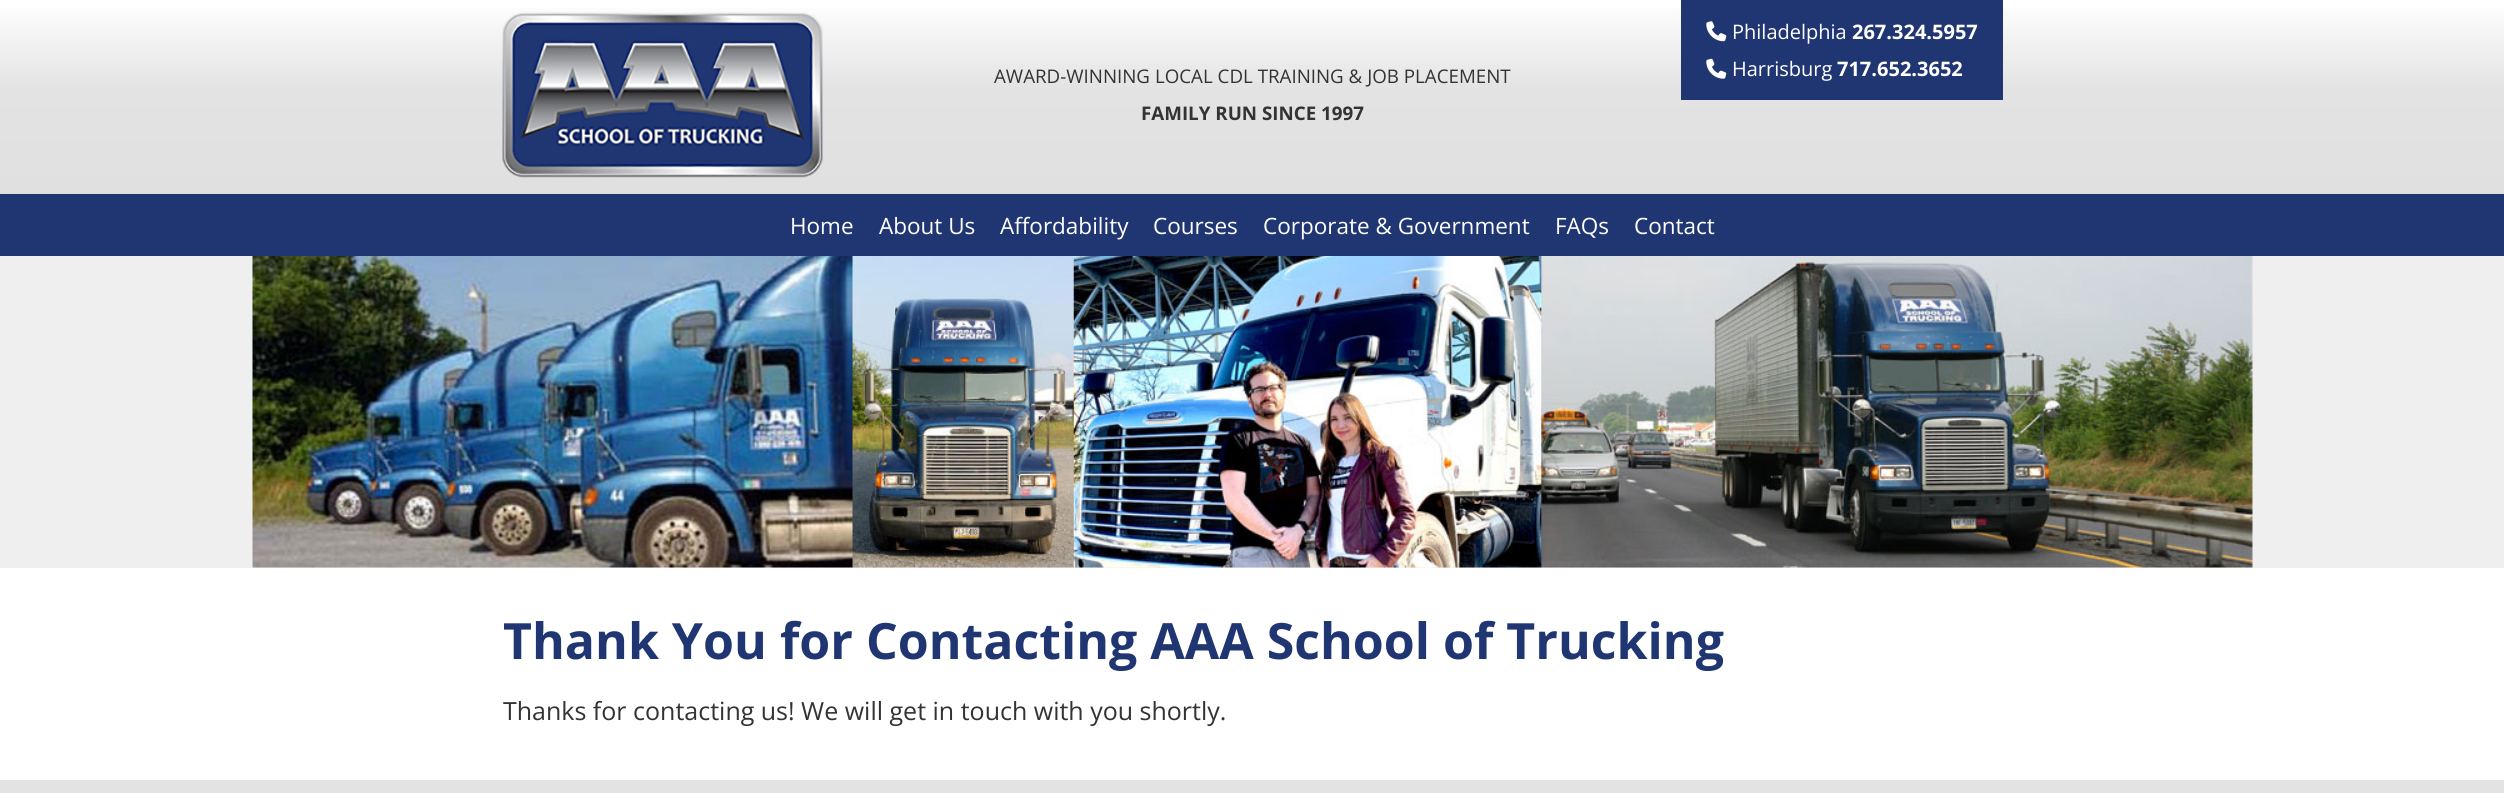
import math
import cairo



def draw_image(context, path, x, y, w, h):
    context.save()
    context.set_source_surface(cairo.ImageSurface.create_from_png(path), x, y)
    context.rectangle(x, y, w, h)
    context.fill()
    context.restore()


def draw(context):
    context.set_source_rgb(1, 1, 1)
    context.paint()
    gradient = cairo.LinearGradient(1253, 194, 1253, 0)
    gradient.add_color_stop_rgba(0, 224 / 255, 224 / 255, 224 / 255, 1)
    gradient.add_color_stop_rgba(0.54, 227 / 255, 227 / 255, 227 / 255, 1)
    gradient.add_color_stop_rgba(1, 1, 1, 1, 1)
    context.set_source(gradient)
    context.rectangle(0, 8, 2504, 186)
    context.fill()
    draw_image(context, "images/1.png", 502, 12, 321, 166)
    context.set_source_rgb(32 / 255, 54 / 255, 115 / 255)
    context.rectangle(1681, 0, 322, 100)
    context.fill()
    draw_image(context, "images/2.png", 1706, 21, 21, 21)
    draw_image(context, "images/3.png", 1706, 58, 21, 21)
    context.rectangle(0, 194, 2504, 62)
    context.fill()
    context.set_source_rgb(239 / 255, 239 / 255, 239 / 255)
    context.rectangle(0, 256, 2504, 312)
    context.fill()
    draw_image(context, "images/4.png", 252, 256, 2001, 312)
    context.set_source_rgb(227 / 255, 227 / 255, 227 / 255)
    context.rectangle(0, 780, 2504, 13)
    context.fill()
    context.select_font_face("Open Sans")
    context.set_font_size(20)
    context.set_source_rgb(1, 1, 1)
    context.move_to(1732, 39)
    context.show_text("Philadelphia")
    context.select_font_face("Open Sans", cairo.FontSlant.NORMAL, cairo.FontWeight.BOLD)
    context.move_to(1852, 39)
    context.show_text("267.324.5957")
    context.select_font_face("Open Sans")
    context.move_to(1732, 76)
    context.show_text("Harrisburg")
    context.select_font_face("Open Sans", cairo.FontSlant.NORMAL, cairo.FontWeight.BOLD)
    context.move_to(1837, 76)
    context.show_text("717.652.3652")
    context.select_font_face("Open Sans")
    context.set_font_size(18.75)
    context.set_source_rgb(51 / 255, 51 / 255, 51 / 255)
    context.move_to(994, 83)
    context.show_text("AWARD-WINNING LOCAL CDL TRAINING & JOB PLACEMENT")
    context.select_font_face("Open Sans", cairo.FontSlant.NORMAL, cairo.FontWeight.BOLD)
    context.move_to(1141, 120)
    context.show_text("FAMILY RUN SINCE 1997")
    context.select_font_face("Open Sans")
    context.set_font_size(22.5)
    context.set_source_rgb(1, 1, 1)
    context.move_to(790, 234)
    context.show_text("Home")
    context.move_to(879, 234)
    context.show_text("About Us")
    context.move_to(1000, 234)
    context.show_text("Affordability")
    context.move_to(1153, 234)
    context.show_text("Courses")
    context.move_to(1263, 234)
    context.show_text("Corporate & Government")
    context.move_to(1555, 234)
    context.show_text("FAQs")
    context.move_to(1634, 234)
    context.show_text("Contact")
    context.select_font_face("Open Sans", cairo.FontSlant.NORMAL, cairo.FontWeight.BOLD)
    context.set_font_size(50)
    context.set_source_rgb(32 / 255, 54 / 255, 115 / 255)
    context.move_to(503, 659)
    context.show_text("Thank You for Contacting AAA School of Trucking")
    context.select_font_face("Open Sans")
    context.set_font_size(25)
    context.set_source_rgb(51 / 255, 51 / 255, 51 / 255)
    context.move_to(503, 720)
    context.show_text("Thanks for contacting us! We will get in touch with you shortly.")


surface = cairo.ImageSurface(cairo.Format.RGB24, 2504, 793)
context = cairo.Context(surface)
options = cairo.FontOptions()
options.set_hint_metrics(cairo.HintMetrics.OFF)
options.set_hint_style(cairo.HintStyle.NONE)
context.set_font_options(options)
context.set_miter_limit(4)
draw(context)
surface.write_to_png("out.png")
